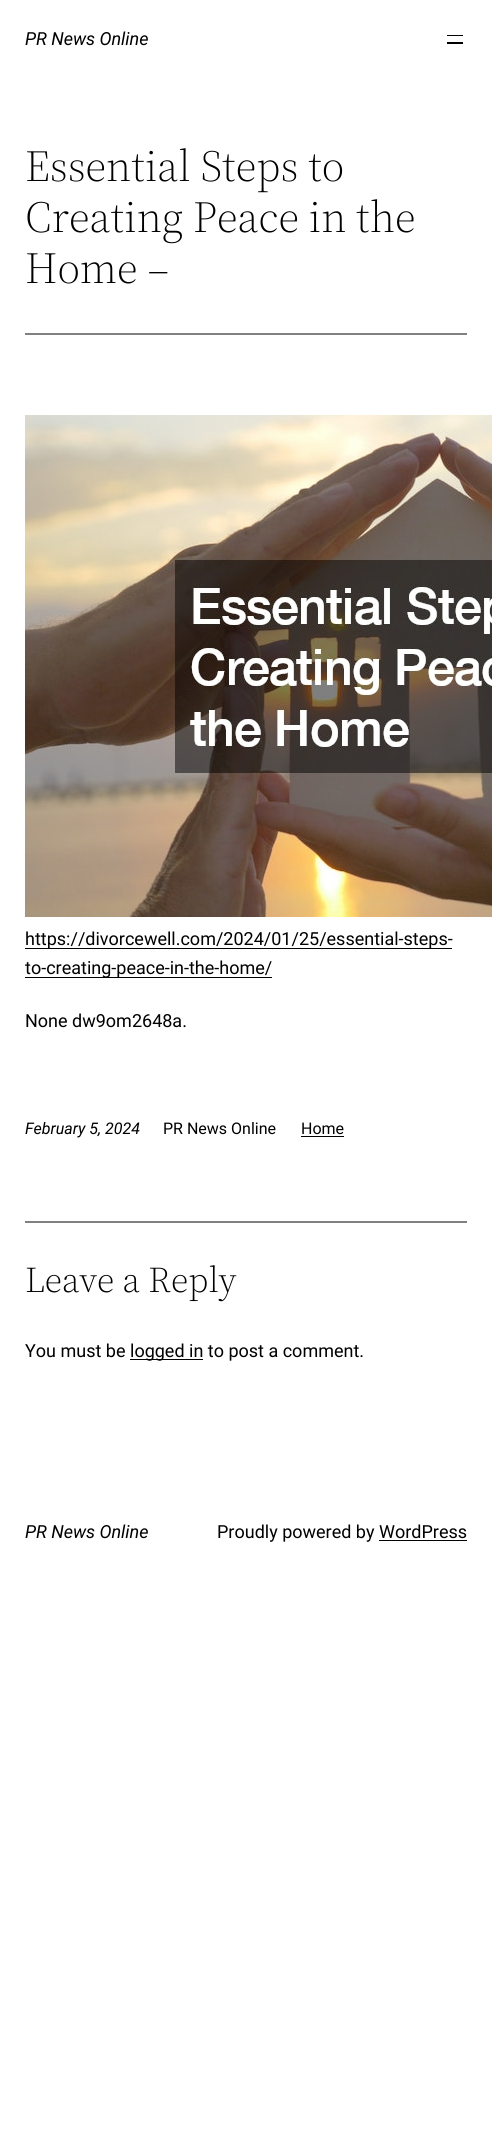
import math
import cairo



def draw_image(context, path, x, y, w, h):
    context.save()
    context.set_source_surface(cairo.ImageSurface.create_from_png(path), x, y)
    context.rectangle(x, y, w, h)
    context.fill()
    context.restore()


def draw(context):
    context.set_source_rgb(1, 1, 1)
    context.paint()
    context.set_source_rgb(0, 0, 0)
    context.rectangle(447, 35, 16, 1)
    context.fill()
    context.rectangle(447, 42, 16, 2)
    context.fill()
    context.set_source_rgb(128 / 255, 128 / 255, 128 / 255)
    context.rectangle(25, 333, 442, 2)
    context.fill()
    draw_image(context, "images/1.png", 25, 415, 467, 502)
    context.set_source_rgb(0, 0, 0)
    context.rectangle(25, 948, 427, 1)
    context.fill()
    context.rectangle(25, 977, 247, 1)
    context.fill()
    context.rectangle(301, 1136, 43, 1)
    context.fill()
    context.set_source_rgb(128 / 255, 128 / 255, 128 / 255)
    context.rectangle(25, 1221, 442, 2)
    context.fill()
    context.set_source_rgb(0, 0, 0)
    context.rectangle(130, 1359, 73, 1)
    context.fill()
    context.rectangle(379, 1540, 88, 1)
    context.fill()
    context.select_font_face("Roboto", cairo.FontSlant.ITALIC)
    context.set_font_size(18)
    context.move_to(25, 45)
    context.show_text("PR News Online")
    context.select_font_face("Source Serif 4 Light")
    context.set_font_size(44)
    context.move_to(25, 181)
    context.show_text("Essential Steps to")
    context.move_to(25, 232)
    context.show_text("Creating Peace in the")
    context.move_to(25, 283)
    context.show_text("Home –")
    context.select_font_face("Roboto")
    context.set_font_size(18)
    context.move_to(25, 945)
    context.show_text("https://divorcewell.com/2024/01/25/essential-steps-")
    context.move_to(25, 974)
    context.show_text("to-creating-peace-in-the-home/")
    context.move_to(25, 1027)
    context.show_text("None dw9om2648a.")
    context.select_font_face("Roboto", cairo.FontSlant.ITALIC)
    context.set_font_size(16)
    context.move_to(25, 1134)
    context.show_text("February 5, 2024")
    context.select_font_face("Roboto")
    context.move_to(163, 1134)
    context.show_text("PR News Online")
    context.move_to(301, 1134)
    context.show_text("Home")
    context.select_font_face("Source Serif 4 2 Light")
    context.set_font_size(36)
    context.move_to(25, 1292)
    context.show_text("Leave a Reply")
    context.select_font_face("Roboto")
    context.set_font_size(18)
    context.move_to(25, 1357)
    context.show_text("You must be")
    context.move_to(130, 1357)
    context.show_text("logged in to post a comment.")
    context.select_font_face("Roboto", cairo.FontSlant.ITALIC)
    context.move_to(25, 1538)
    context.show_text("PR News Online")
    context.select_font_face("Roboto")
    context.move_to(217, 1538)
    context.show_text("Proudly powered by WordPress")


surface = cairo.ImageSurface(cairo.Format.RGB24, 492, 2132)
context = cairo.Context(surface)
options = cairo.FontOptions()
options.set_hint_metrics(cairo.HintMetrics.OFF)
options.set_hint_style(cairo.HintStyle.NONE)
context.set_font_options(options)
context.set_miter_limit(4)
draw(context)
surface.write_to_png("out.png")
